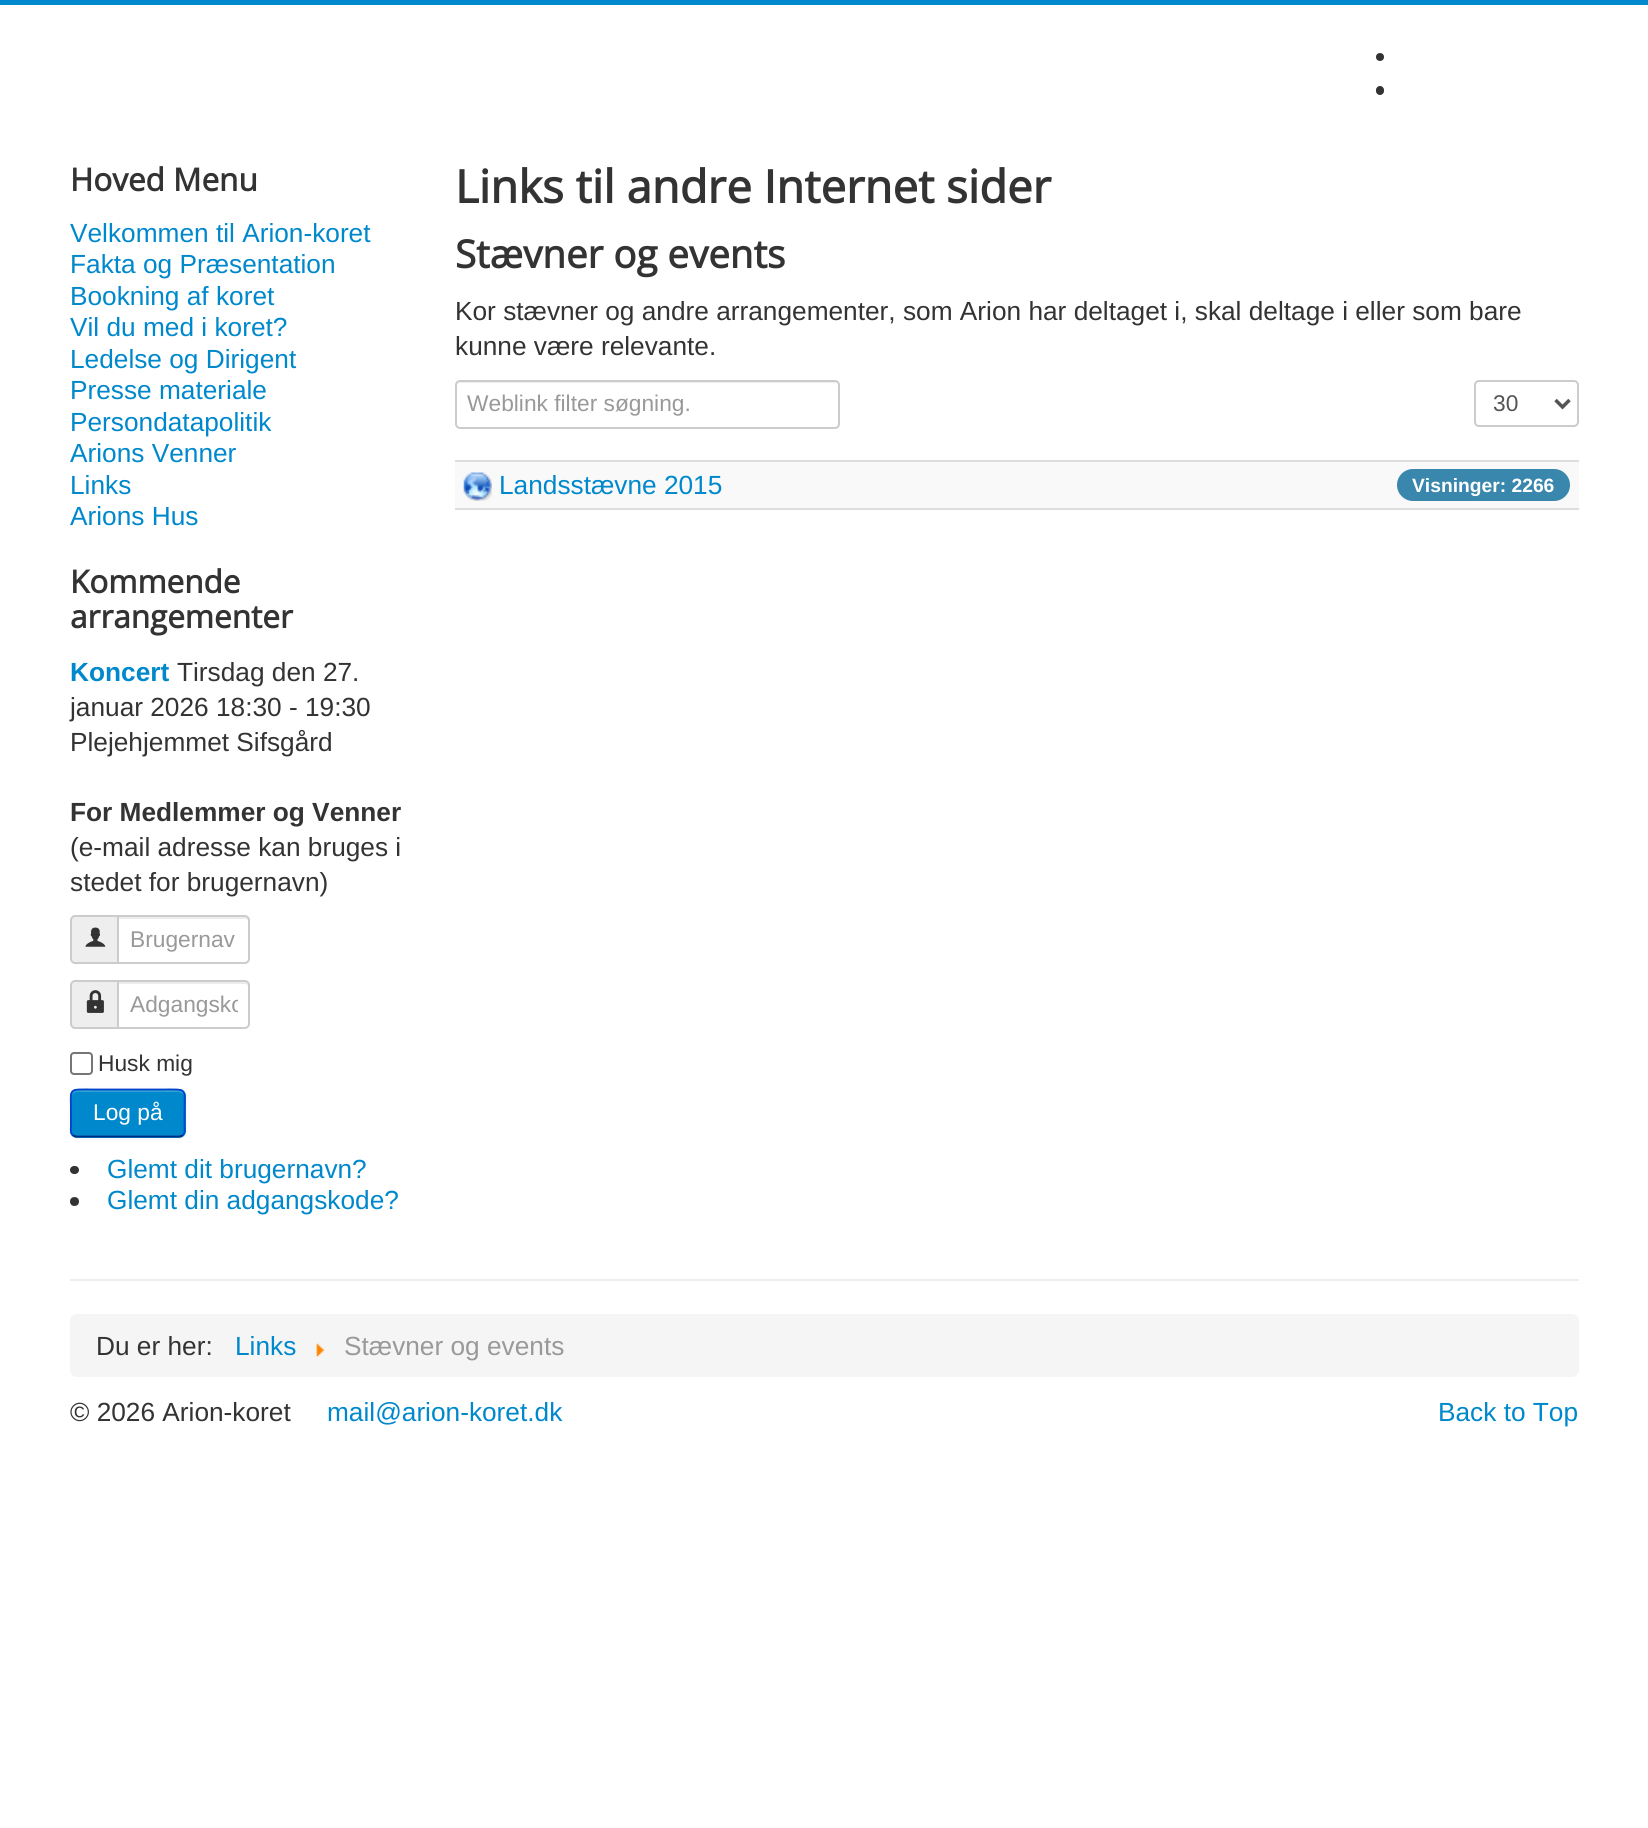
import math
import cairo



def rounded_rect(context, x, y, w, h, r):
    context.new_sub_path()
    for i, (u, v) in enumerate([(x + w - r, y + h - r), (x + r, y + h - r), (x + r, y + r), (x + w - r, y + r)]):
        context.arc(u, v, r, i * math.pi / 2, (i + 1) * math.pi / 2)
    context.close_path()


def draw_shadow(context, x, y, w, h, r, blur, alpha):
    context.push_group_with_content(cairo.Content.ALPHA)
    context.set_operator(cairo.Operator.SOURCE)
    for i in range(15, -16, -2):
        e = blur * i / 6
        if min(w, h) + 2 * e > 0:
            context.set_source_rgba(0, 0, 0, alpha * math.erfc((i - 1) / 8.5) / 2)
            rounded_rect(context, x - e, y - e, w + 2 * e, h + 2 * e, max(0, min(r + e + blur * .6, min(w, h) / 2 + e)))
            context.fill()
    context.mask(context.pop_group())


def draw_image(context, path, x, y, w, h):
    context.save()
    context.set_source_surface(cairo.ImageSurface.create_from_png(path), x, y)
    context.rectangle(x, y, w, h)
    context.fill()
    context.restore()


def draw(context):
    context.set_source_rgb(1, 1, 1)
    context.paint()
    context.set_source_rgb(0, 136 / 255, 204 / 255)
    context.rectangle(0, 0, 1648, 5)
    context.fill()
    context.set_source_rgb(51 / 255, 51 / 255, 51 / 255)
    context.arc(1380, 57, 4, 0, 2 * math.pi)
    context.fill()
    rounded_rect(context, 1376, 86, 8, 9, 4)
    context.fill()
    context.set_source_rgb(238 / 255, 238 / 255, 238 / 255)
    context.new_path()
    context.move_to(75, 916)
    context.line_to(118, 916)
    context.line_to(118, 963)
    context.line_to(75, 963)
    context.curve_to(73, 963, 71, 961, 71, 959)
    context.line_to(71, 920)
    context.curve_to(71, 918, 73, 916, 75, 916)
    context.close_path()
    context.fill_preserve()
    context.set_source_rgb(204 / 255, 204 / 255, 204 / 255)
    context.stroke()
    draw_image(context, "images/1.png", 85, 927, 21, 20)
    context.set_source_rgb(1, 1, 1)
    context.new_path()
    context.move_to(117, 915)
    context.line_to(245, 915)
    context.curve_to(248, 915, 250, 917, 250, 920)
    context.line_to(250, 959)
    context.curve_to(250, 962, 248, 964, 245, 964)
    context.line_to(117, 964)
    context.close_path()
    context.fill()
    context.set_source_rgb(236 / 255, 236 / 255, 236 / 255)
    context.new_path()
    context.move_to(119, 919)
    context.line_to(245, 919)
    context.curve_to(250, 919, 248, 926, 248, 928)
    context.line_to(248, 962)
    context.curve_to(249, 961, 249, 960, 249, 959)
    context.line_to(249, 921)
    context.curve_to(249, 919, 247, 917, 245, 917)
    context.line_to(119, 917)
    context.close_path()
    context.fill()
    context.new_path()
    context.move_to(118, 916)
    context.line_to(245, 916)
    context.curve_to(247, 916, 249, 918, 249, 920)
    context.line_to(249, 959)
    context.curve_to(249, 961, 247, 963, 245, 963)
    context.line_to(118, 963)
    context.close_path()
    context.set_source_rgb(204 / 255, 204 / 255, 204 / 255)
    context.stroke()
    context.set_source_rgb(238 / 255, 238 / 255, 238 / 255)
    context.new_path()
    context.move_to(75, 981)
    context.line_to(118, 981)
    context.line_to(118, 1028)
    context.line_to(75, 1028)
    context.curve_to(73, 1028, 71, 1026, 71, 1024)
    context.line_to(71, 985)
    context.curve_to(71, 983, 73, 981, 75, 981)
    context.close_path()
    context.fill_preserve()
    context.set_source_rgb(204 / 255, 204 / 255, 204 / 255)
    context.stroke()
    draw_image(context, "images/2.png", 86, 990, 18, 23)
    context.set_source_rgb(1, 1, 1)
    context.new_path()
    context.move_to(117, 980)
    context.line_to(245, 980)
    context.curve_to(248, 980, 250, 982, 250, 985)
    context.line_to(250, 1024)
    context.curve_to(250, 1027, 248, 1029, 245, 1029)
    context.line_to(117, 1029)
    context.close_path()
    context.fill()
    context.set_source_rgb(236 / 255, 236 / 255, 236 / 255)
    context.new_path()
    context.move_to(119, 984)
    context.line_to(245, 984)
    context.curve_to(247, 984, 248, 985, 248, 987)
    context.line_to(248, 1026)
    context.curve_to(249, 1025, 249, 1024, 249, 1023)
    context.line_to(249, 986)
    context.curve_to(249, 984, 247, 982, 245, 982)
    context.line_to(119, 982)
    context.close_path()
    context.fill()
    context.new_path()
    context.move_to(118, 981)
    context.line_to(245, 981)
    context.curve_to(247, 981, 249, 983, 249, 985)
    context.line_to(249, 1024)
    context.curve_to(249, 1026, 247, 1028, 245, 1028)
    context.line_to(118, 1028)
    context.close_path()
    context.set_source_rgb(204 / 255, 204 / 255, 204 / 255)
    context.stroke()
    rounded_rect(context, 71, 1053, 21, 21, 3)
    context.set_source_rgb(118 / 255, 118 / 255, 118 / 255)
    context.stroke()
    context.set_source_rgb(0, 0, 0)
    draw_shadow(context, 70, 1090, 116, 49, 7, 2, 0.05)
    context.set_source_rgb(0, 136 / 255, 204 / 255)
    rounded_rect(context, 70, 1089, 116, 49, 7)
    context.fill()
    context.set_source_rgb(51 / 255, 160 / 255, 214 / 255)
    context.new_path()
    context.move_to(77, 1092)
    context.line_to(178, 1092)
    context.curve_to(181, 1092, 184, 1094, 184, 1097)
    context.line_to(184, 1095)
    context.curve_to(184, 1092, 182, 1090, 179, 1090)
    context.line_to(77, 1090)
    context.curve_to(74, 1090, 72, 1092, 72, 1095)
    context.line_to(72, 1097)
    context.curve_to(72, 1094, 74, 1092, 77, 1092)
    context.close_path()
    context.fill()
    context.new_path()
    context.move_to(183, 1135)
    context.curve_to(181.5, 1136, 180, 1136.5, 178.5, 1136.5)
    context.line_to(77, 1136.5)
    context.curve_to(75.5, 1136.5, 74, 1136, 72.5, 1135)
    context.set_source_rgb(0, 42 / 255, 128 / 255)
    context.set_line_width(1.8)
    context.stroke()
    context.new_path()
    context.move_to(72.5, 1135)
    context.curve_to(70, 1132, 71, 1128, 71, 1124.5)
    context.line_to(71, 1113)
    context.curve_to(71, 1087, 67, 1089.5, 94, 1089.5)
    context.line_to(161.5, 1089.5)
    context.curve_to(188.5, 1089.5, 184.5, 1087, 184.5, 1113)
    context.line_to(184.5, 1124.5)
    context.curve_to(184.5, 1128, 185.5, 1132, 183, 1135)
    context.set_source_rgb(0, 68 / 255, 204 / 255)
    context.stroke()
    context.set_source_rgb(51 / 255, 51 / 255, 51 / 255)
    rounded_rect(context, 70, 1166, 9, 8, 4)
    context.fill()
    context.arc(74.5, 1201.5, 4.5, 0, 2 * math.pi)
    context.fill()
    context.set_source_rgb(236 / 255, 236 / 255, 236 / 255)
    context.new_path()
    context.move_to(460, 383)
    context.line_to(835, 383)
    context.curve_to(837, 383, 838, 385, 838, 387)
    context.curve_to(838, 384, 837, 382, 834, 382)
    context.line_to(461, 382)
    context.curve_to(458, 382, 457, 384, 457, 387)
    context.curve_to(457, 385, 458, 383, 460, 383)
    context.close_path()
    context.fill()
    rounded_rect(context, 456, 381, 383, 47, 4)
    context.set_source_rgb(204 / 255, 204 / 255, 204 / 255)
    context.set_line_width(2)
    context.stroke()
    rounded_rect(context, 1475, 381, 103, 45, 4)
    context.stroke()
    context.new_path()
    context.move_to(1555.5, 400)
    context.line_to(1562.5, 407)
    context.line_to(1569.5, 400)
    context.set_source_rgb(85 / 255, 85 / 255, 85 / 255)
    context.set_line_width(3.5)
    context.stroke()
    context.set_source_rgb(221 / 255, 221 / 255, 221 / 255)
    context.rectangle(455, 460, 1124, 2)
    context.fill()
    context.set_source_rgb(249 / 255, 249 / 255, 249 / 255)
    context.rectangle(455, 462, 1124, 46)
    context.fill()
    context.set_source_rgb(221 / 255, 221 / 255, 221 / 255)
    context.rectangle(455, 508, 1124, 2)
    context.fill()
    draw_image(context, "images/3.png", 463, 472, 29, 29)
    context.set_source_rgb(58 / 255, 135 / 255, 173 / 255)
    rounded_rect(context, 1397, 469, 173, 32, 16)
    context.fill()
    context.set_source_rgb(238 / 255, 238 / 255, 238 / 255)
    context.rectangle(70, 1279, 1509, 2)
    context.fill()
    context.set_source_rgb(245 / 255, 245 / 255, 245 / 255)
    rounded_rect(context, 70, 1314, 1509, 63, 7)
    context.fill()
    draw_image(context, "images/4.png", 316, 1343, 9, 14)
    context.select_font_face("Open Sans", cairo.FontSlant.NORMAL, cairo.FontWeight.BOLD)
    context.set_font_size(31.5)
    context.set_source_rgb(51 / 255, 51 / 255, 51 / 255)
    context.move_to(70, 191)
    context.show_text("Hoved Menu")
    context.select_font_face("Liberation Sans")
    context.set_font_size(26.25)
    context.set_source_rgb(0, 136 / 255, 204 / 255)
    context.move_to(70, 242)
    context.show_text("Velkommen til Arion-koret")
    context.move_to(70, 273)
    context.show_text("Fakta og Præsentation")
    context.move_to(70, 305)
    context.show_text("Bookning af koret")
    context.move_to(70, 336)
    context.show_text("Vil du med i koret?")
    context.move_to(70, 368)
    context.show_text("Ledelse og Dirigent")
    context.move_to(70, 399)
    context.show_text("Presse materiale")
    context.move_to(70, 431)
    context.show_text("Persondatapolitik")
    context.move_to(70, 462)
    context.show_text("Arions Venner")
    context.move_to(70, 494)
    context.show_text("Links")
    context.move_to(70, 525)
    context.show_text("Arions Hus")
    context.select_font_face("Open Sans", cairo.FontSlant.NORMAL, cairo.FontWeight.BOLD)
    context.set_font_size(31.5)
    context.set_source_rgb(51 / 255, 51 / 255, 51 / 255)
    context.move_to(70, 593)
    context.show_text("Kommende")
    context.move_to(70, 628)
    context.show_text("arrangementer")
    context.select_font_face("Liberation Sans", cairo.FontSlant.NORMAL, cairo.FontWeight.BOLD)
    context.set_font_size(26.25)
    context.set_source_rgb(0, 136 / 255, 204 / 255)
    context.move_to(70, 681)
    context.show_text("Koncert")
    context.select_font_face("Liberation Sans")
    context.set_source_rgb(51 / 255, 51 / 255, 51 / 255)
    context.move_to(177, 681)
    context.show_text("Tirsdag den 27.")
    context.move_to(70, 716)
    context.show_text("januar 2026 18:30 - 19:30")
    context.move_to(70, 751)
    context.show_text("Plejehjemmet Sifsgård")
    context.select_font_face("Liberation Sans", cairo.FontSlant.NORMAL, cairo.FontWeight.BOLD)
    context.move_to(70, 821)
    context.show_text("For Medlemmer og Venner")
    context.select_font_face("Liberation Sans")
    context.move_to(70, 856)
    context.show_text("(e-mail adresse kan bruges i")
    context.move_to(70, 891)
    context.show_text("stedet for brugernavn)")
    context.set_font_size(22.75)
    context.set_source_rgb(153 / 255, 153 / 255, 153 / 255)
    context.move_to(130, 947)
    context.show_text("Brugernav")
    context.save()
    context.rectangle(130, 991, 108, 26)
    context.clip()
    context.move_to(130, 1012)
    context.show_text("Adgangsko")
    context.restore()
    context.set_source_rgb(51 / 255, 51 / 255, 51 / 255)
    context.move_to(98, 1071)
    context.show_text("Husk mig")
    context.set_source_rgb(1, 1, 1)
    context.move_to(93, 1120)
    context.show_text("Log på")
    context.set_font_size(26.25)
    context.set_source_rgb(0, 136 / 255, 204 / 255)
    context.move_to(107, 1178)
    context.show_text("Glemt dit brugernavn?")
    context.move_to(107, 1209)
    context.show_text("Glemt din adgangskode?")
    context.select_font_face("Open Sans", cairo.FontSlant.NORMAL, cairo.FontWeight.BOLD)
    context.set_font_size(45.5)
    context.set_source_rgb(51 / 255, 51 / 255, 51 / 255)
    context.move_to(455, 203)
    context.show_text("Links til andre Internet sider")
    context.set_font_size(38.5)
    context.move_to(455, 268)
    context.show_text("Stævner og events")
    context.select_font_face("Liberation Sans")
    context.set_font_size(26.25)
    context.move_to(455, 320)
    context.show_text("Kor stævner og andre arrangementer, som Arion har deltaget i, skal deltage i eller som bare")
    context.move_to(455, 355)
    context.show_text("kunne være relevante.")
    context.set_font_size(22.75)
    context.set_source_rgb(153 / 255, 153 / 255, 153 / 255)
    context.move_to(467, 411)
    context.show_text("Weblink filter søgning.")
    context.set_source_rgb(85 / 255, 85 / 255, 85 / 255)
    context.move_to(1493, 411)
    context.show_text("30")
    context.set_font_size(26.25)
    context.set_source_rgb(0, 136 / 255, 204 / 255)
    context.move_to(499, 494)
    context.show_text("Landsstævne 2015")
    context.select_font_face("Liberation Sans", cairo.FontSlant.NORMAL, cairo.FontWeight.BOLD)
    context.set_font_size(19.25)
    context.set_source_rgb(1, 1, 1)
    context.move_to(1412, 492)
    context.show_text("Visninger: 2266")
    context.select_font_face("Liberation Sans")
    context.set_font_size(26.25)
    context.set_source_rgb(51 / 255, 51 / 255, 51 / 255)
    context.move_to(96, 1355)
    context.show_text("Du er her:")
    context.set_source_rgb(0, 136 / 255, 204 / 255)
    context.move_to(235, 1355)
    context.show_text("Links")
    context.set_source_rgb(153 / 255, 153 / 255, 153 / 255)
    context.move_to(344, 1355)
    context.show_text("Stævner og events")
    context.set_source_rgb(51 / 255, 51 / 255, 51 / 255)
    context.move_to(70, 1421)
    context.show_text("© 2026 Arion-koret")
    context.set_source_rgb(0, 136 / 255, 204 / 255)
    context.move_to(327, 1421)
    context.show_text("mail@arion-koret.dk")
    context.move_to(1438, 1421)
    context.show_text("Back to Top")


surface = cairo.ImageSurface(cairo.Format.RGB24, 1648, 1828)
context = cairo.Context(surface)
options = cairo.FontOptions()
options.set_hint_metrics(cairo.HintMetrics.OFF)
options.set_hint_style(cairo.HintStyle.NONE)
context.set_font_options(options)
context.set_miter_limit(4)
draw(context)
surface.write_to_png("out.png")
